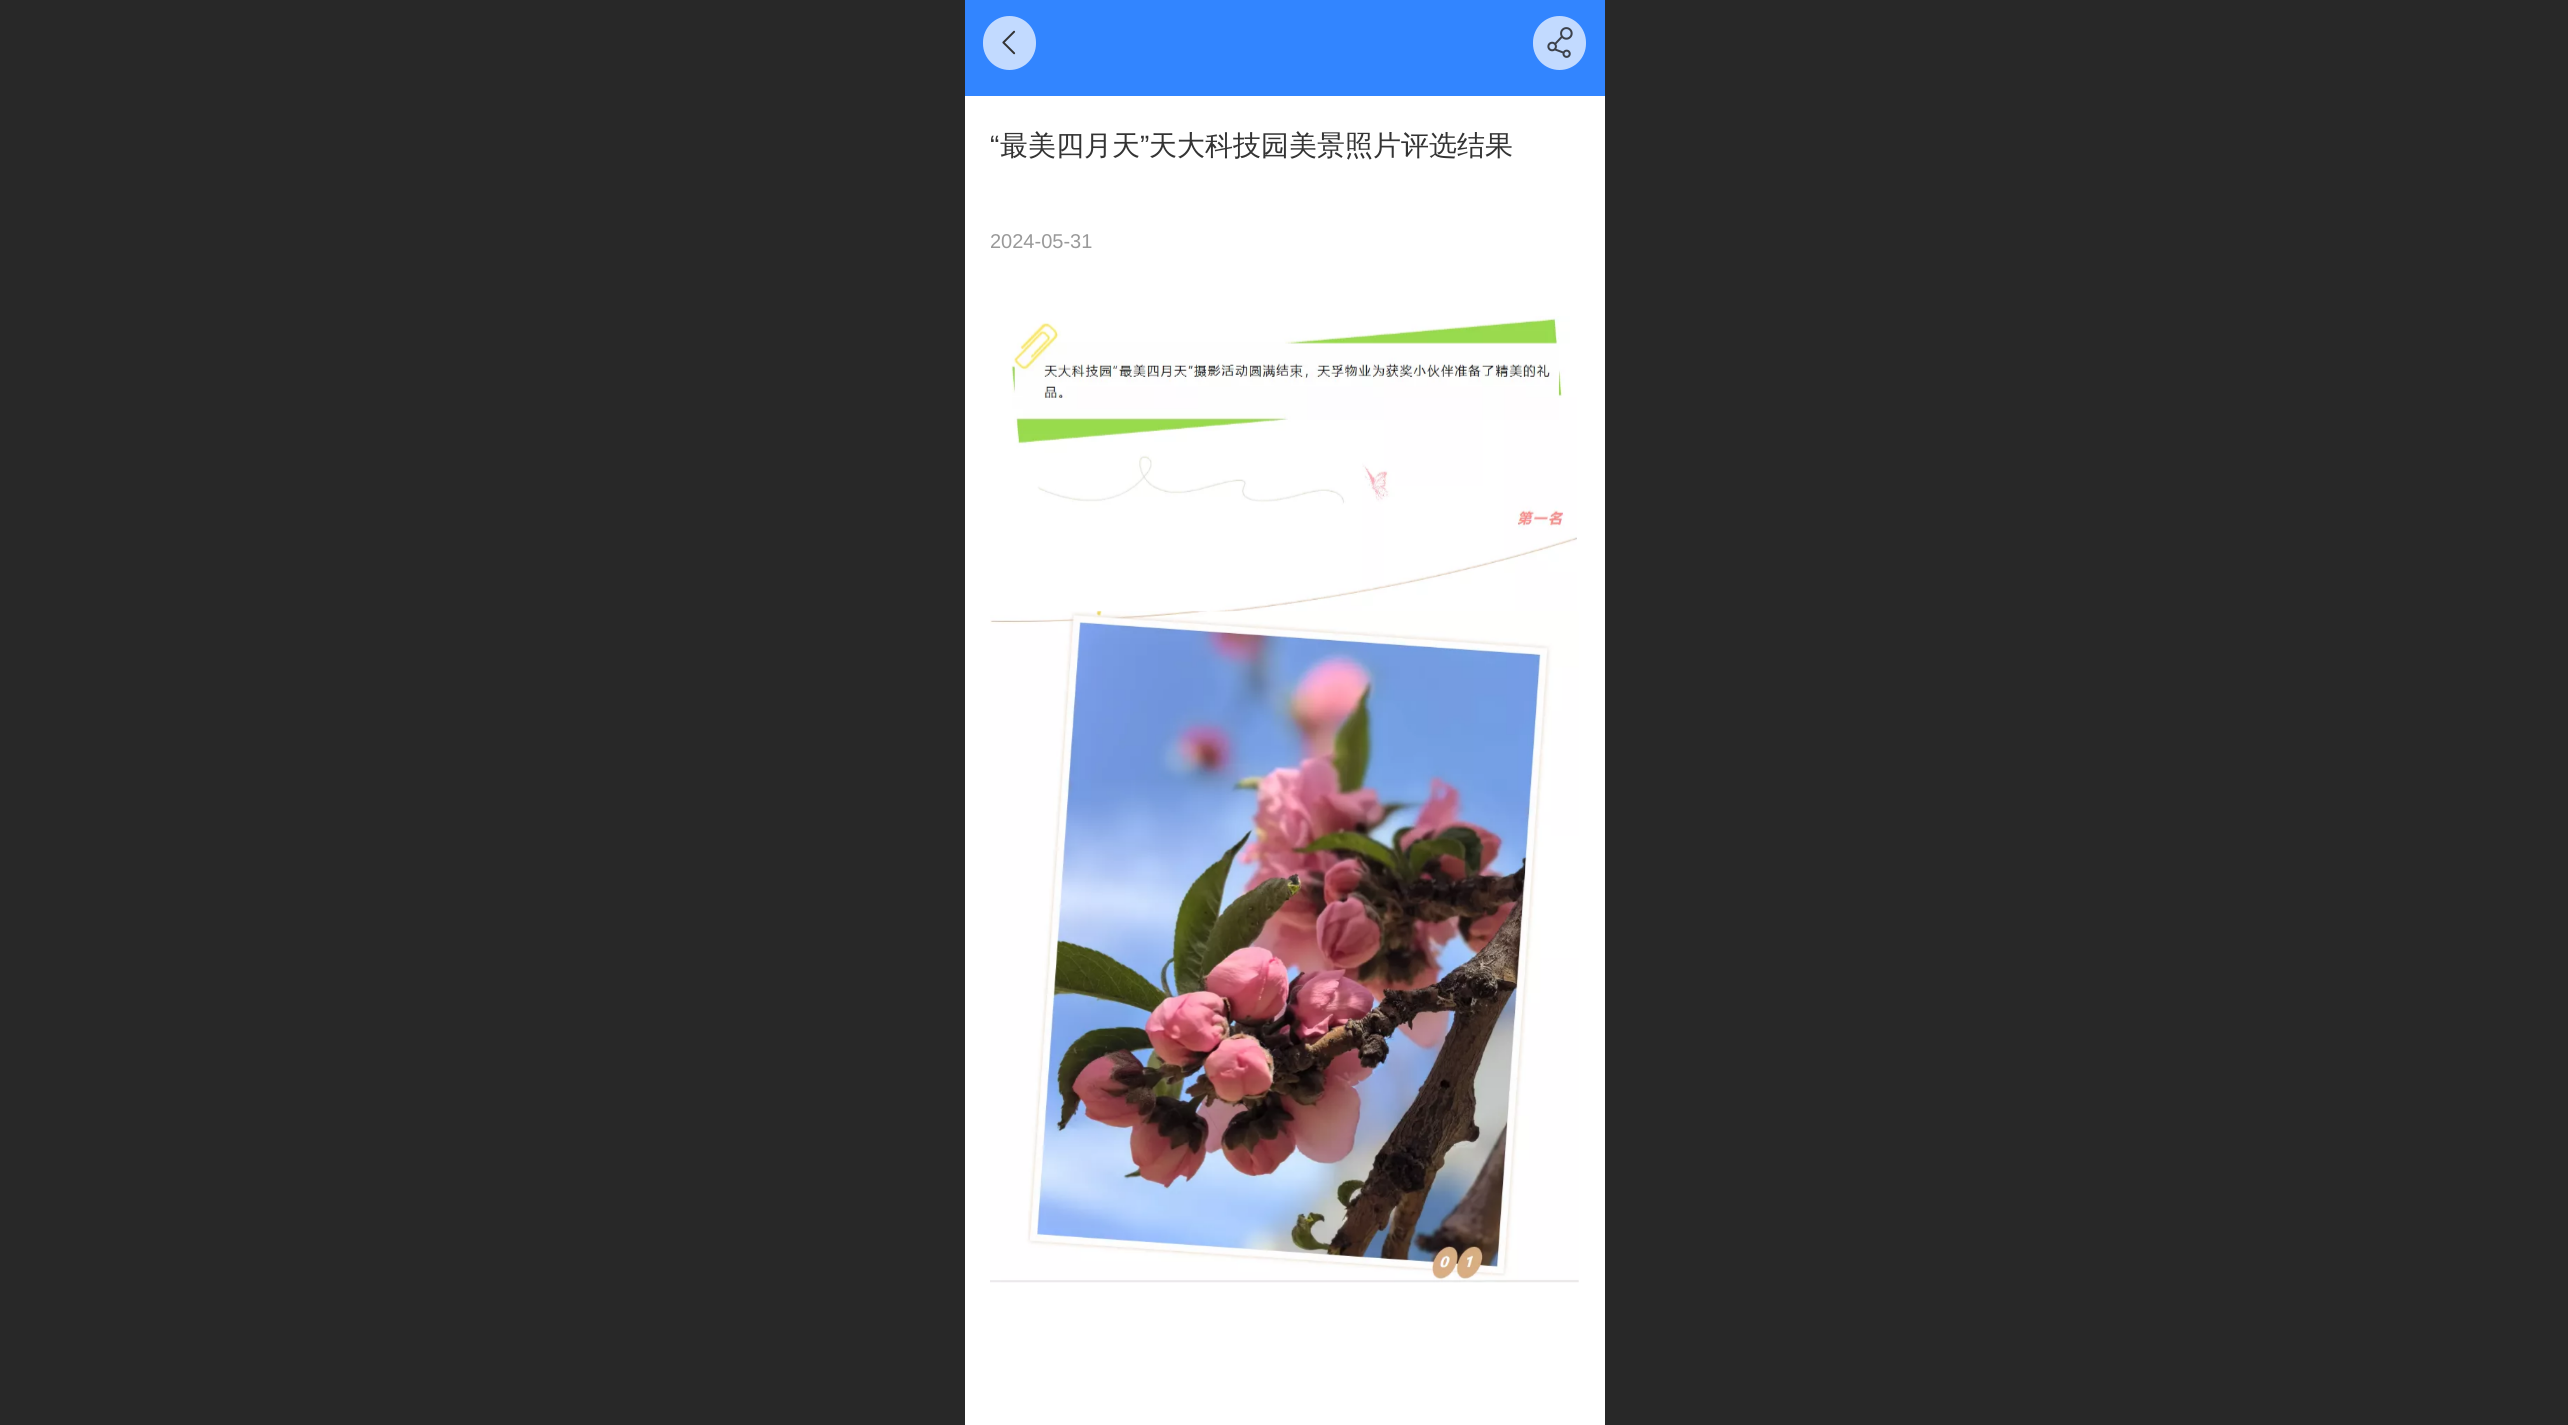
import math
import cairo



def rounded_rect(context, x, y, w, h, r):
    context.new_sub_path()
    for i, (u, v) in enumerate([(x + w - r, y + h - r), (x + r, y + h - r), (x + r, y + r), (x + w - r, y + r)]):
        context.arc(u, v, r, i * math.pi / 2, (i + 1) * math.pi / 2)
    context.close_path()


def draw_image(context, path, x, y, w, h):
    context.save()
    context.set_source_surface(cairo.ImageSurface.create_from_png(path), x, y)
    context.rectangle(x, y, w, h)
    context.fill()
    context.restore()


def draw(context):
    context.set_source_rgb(1, 1, 1)
    context.paint()
    context.set_source_rgb(40 / 255, 40 / 255, 40 / 255)
    context.rectangle(0, 0, 965, 1425)
    context.fill()
    context.set_source_rgb(50 / 255, 133 / 255, 1)
    context.rectangle(965, 0, 640, 96)
    context.fill()
    context.set_source_rgb(194 / 255, 218 / 255, 1)
    rounded_rect(context, 983, 16, 53, 54, 26.5)
    context.fill()
    draw_image(context, "images/1.png", 1002, 30, 14, 25)
    rounded_rect(context, 1533, 16, 53, 54, 26.5)
    context.fill()
    draw_image(context, "images/2.png", 1547, 27, 26, 31)
    draw_image(context, "images/3.png", 1011, 316, 566, 296)
    draw_image(context, "images/4.png", 990, 610, 589, 673)
    context.set_source_rgb(40 / 255, 40 / 255, 40 / 255)
    context.rectangle(1605, 0, 963, 1425)
    context.fill()
    context.select_font_face("Liberation Sans")
    context.set_font_size(28)
    context.set_source_rgb(51 / 255, 51 / 255, 51 / 255)
    context.move_to(990, 155)
    context.show_text("“")
    context.select_font_face("WenQuanYi Zen Hei Medium")
    context.move_to(1000, 155)
    context.show_text("最美四月天")
    context.select_font_face("Liberation Sans")
    context.move_to(1140, 155)
    context.show_text("”")
    context.select_font_face("WenQuanYi Zen Hei Medium")
    context.move_to(1149, 155)
    context.show_text("天大科技园美景照片评选结果")
    context.select_font_face("Liberation Sans")
    context.set_font_size(20)
    context.set_source_rgb(153 / 255, 153 / 255, 153 / 255)
    context.move_to(990, 248)
    context.show_text("2024-05-31")


surface = cairo.ImageSurface(cairo.Format.RGB24, 2568, 1425)
context = cairo.Context(surface)
options = cairo.FontOptions()
options.set_hint_metrics(cairo.HintMetrics.OFF)
options.set_hint_style(cairo.HintStyle.NONE)
context.set_font_options(options)
context.set_miter_limit(4)
draw(context)
surface.write_to_png("out.png")
